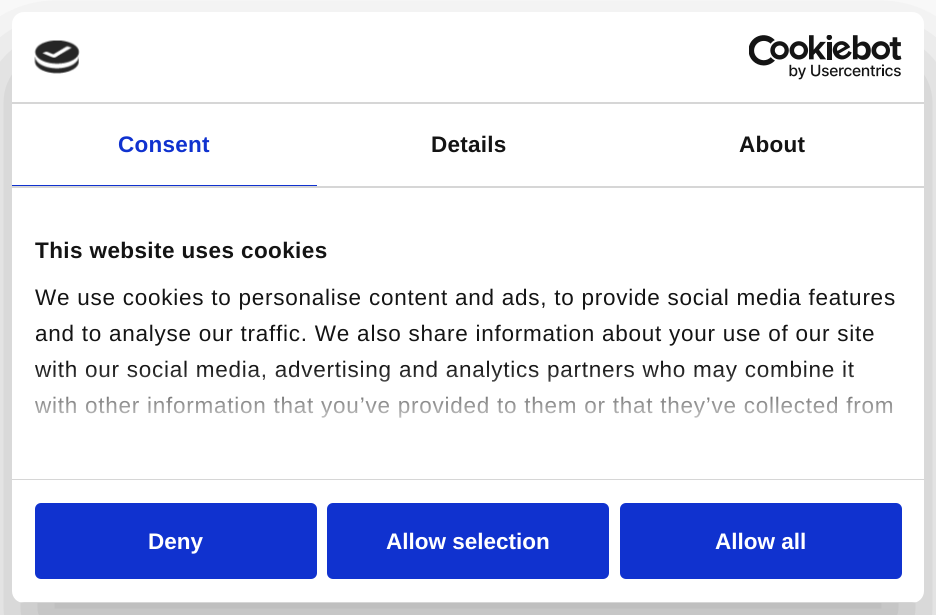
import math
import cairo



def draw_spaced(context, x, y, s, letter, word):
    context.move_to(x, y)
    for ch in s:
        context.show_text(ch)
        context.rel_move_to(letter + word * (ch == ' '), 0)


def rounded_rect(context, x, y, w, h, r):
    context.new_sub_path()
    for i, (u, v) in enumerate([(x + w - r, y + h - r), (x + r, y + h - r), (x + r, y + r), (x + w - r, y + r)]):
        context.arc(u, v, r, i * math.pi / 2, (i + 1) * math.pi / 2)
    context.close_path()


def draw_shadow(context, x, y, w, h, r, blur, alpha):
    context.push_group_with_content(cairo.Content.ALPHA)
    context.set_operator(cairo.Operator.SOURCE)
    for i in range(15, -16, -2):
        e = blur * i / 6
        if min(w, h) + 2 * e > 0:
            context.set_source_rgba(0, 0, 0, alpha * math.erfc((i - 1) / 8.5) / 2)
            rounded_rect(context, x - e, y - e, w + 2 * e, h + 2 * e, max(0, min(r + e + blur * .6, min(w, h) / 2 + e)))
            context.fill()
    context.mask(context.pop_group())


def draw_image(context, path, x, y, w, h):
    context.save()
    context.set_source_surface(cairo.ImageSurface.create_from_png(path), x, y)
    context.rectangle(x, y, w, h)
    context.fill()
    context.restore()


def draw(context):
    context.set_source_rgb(1, 1, 1)
    context.paint()
    context.set_source_rgb(0, 0, 0)
    draw_shadow(context, 12, 60, 912, 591, 12, 51, 0.3)
    context.set_source_rgb(1, 1, 1)
    rounded_rect(context, 12, 12, 912, 591, 12)
    context.fill()
    context.set_source_rgb(214 / 255, 214 / 255, 214 / 255)
    context.rectangle(12, 102, 912, 2)
    context.fill()
    draw_image(context, "images/1.png", 34, 40, 46, 34)
    draw_image(context, "images/2.png", 749, 35, 153, 45)
    context.rectangle(12, 186, 912, 2)
    context.fill()
    context.set_source_rgb(16 / 255, 50 / 255, 207 / 255)
    context.rectangle(12, 185, 305, 1)
    context.fill()
    context.set_source_rgb(214 / 255, 214 / 255, 214 / 255)
    context.rectangle(12, 479, 912, 1)
    context.fill()
    context.save()
    rounded_rect(context, 12, 12, 912, 591, 12)
    context.clip()
    context.rectangle(12, 602, 912, 1)
    context.fill()
    context.restore()
    context.set_source_rgb(16 / 255, 50 / 255, 207 / 255)
    rounded_rect(context, 36.5, 504.5, 279, 73, 4.5)
    context.fill_preserve()
    context.set_line_width(3)
    context.stroke()
    rounded_rect(context, 328.5, 504.5, 279, 73, 4.5)
    context.fill_preserve()
    context.stroke()
    rounded_rect(context, 621.5, 504.5, 279, 73, 4.5)
    context.fill_preserve()
    context.stroke()
    context.select_font_face("Liberation Sans", cairo.FontSlant.NORMAL, cairo.FontWeight.BOLD)
    context.set_font_size(22.5)
    draw_spaced(context, 118, 152, "Consent", 0.25, 0)
    context.set_source_rgb(20 / 255, 20 / 255, 20 / 255)
    draw_spaced(context, 431, 152, "Details", 0.25, 0)
    draw_spaced(context, 739, 152, "About", 0.25, 0)
    draw_spaced(context, 35, 258, "This website uses cookies", 0.4, 0)
    context.select_font_face("Liberation Sans")
    draw_spaced(context, 35, 305, "We use cookies to personalise content and ads, to provide social media features", 0.75, 0)
    draw_spaced(context, 35, 341, "and to analyse our traffic. We also share information about your use of our site", 0.75, 0)
    draw_spaced(context, 35, 377, "with our social media, advertising and analytics partners who may combine it", 0.75, 0)
    draw_spaced(context, 35, 413, "with other information that you’ve provided to them or that they’ve collected from", 0.75, 0)
    gradient = cairo.LinearGradient(458, 479, 458, 366)
    gradient.add_color_stop_rgba(0, 1, 1, 1, 1)
    gradient.add_color_stop_rgba(0.5, 1, 1, 1, 0.8)
    gradient.add_color_stop_rgba(1, 1, 1, 1, 0)
    context.set_source(gradient)
    context.rectangle(34, 368, 858, 50)
    context.fill()
    context.select_font_face("Liberation Sans", cairo.FontSlant.NORMAL, cairo.FontWeight.BOLD)
    context.set_source_rgb(1, 1, 1)
    context.move_to(148, 549)
    context.show_text("Deny")
    context.move_to(386, 549)
    context.show_text("Allow selection")
    context.move_to(715, 549)
    context.show_text("Allow all")


surface = cairo.ImageSurface(cairo.Format.RGB24, 936, 615)
context = cairo.Context(surface)
options = cairo.FontOptions()
options.set_hint_metrics(cairo.HintMetrics.OFF)
options.set_hint_style(cairo.HintStyle.NONE)
context.set_font_options(options)
context.set_miter_limit(4)
draw(context)
surface.write_to_png("out.png")
